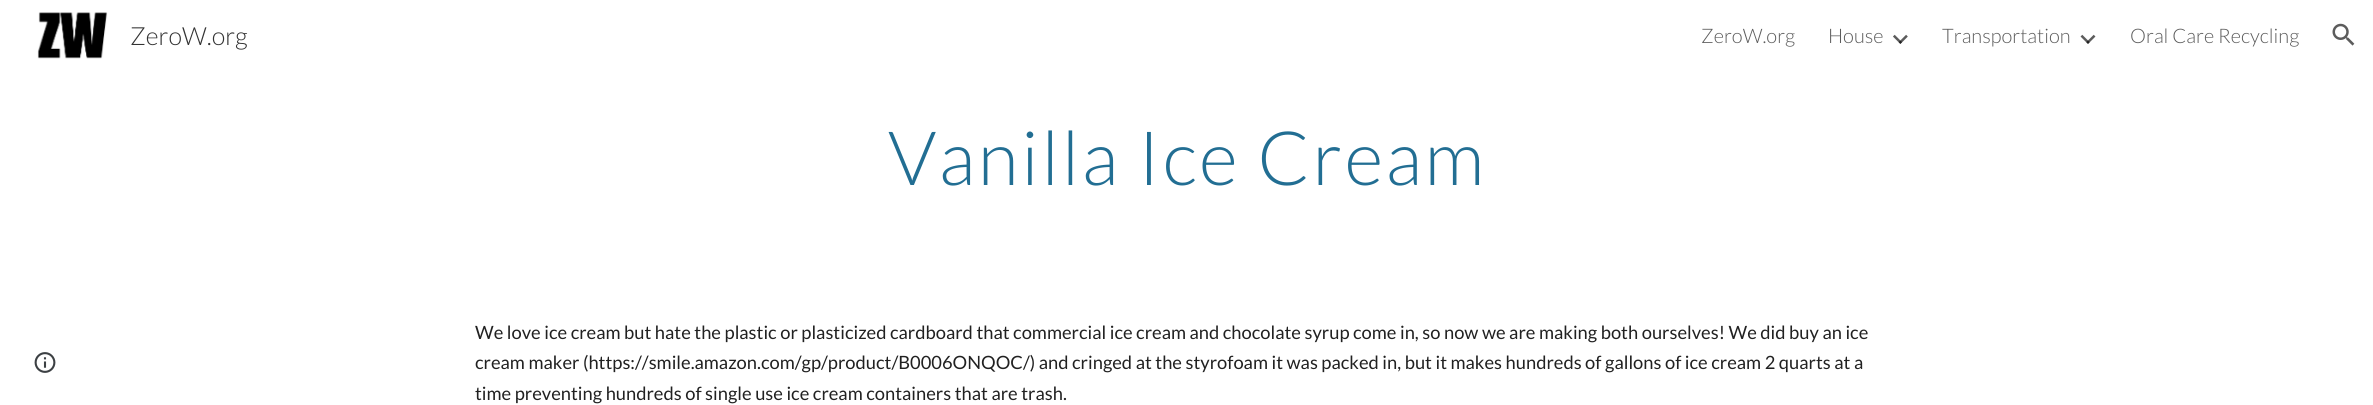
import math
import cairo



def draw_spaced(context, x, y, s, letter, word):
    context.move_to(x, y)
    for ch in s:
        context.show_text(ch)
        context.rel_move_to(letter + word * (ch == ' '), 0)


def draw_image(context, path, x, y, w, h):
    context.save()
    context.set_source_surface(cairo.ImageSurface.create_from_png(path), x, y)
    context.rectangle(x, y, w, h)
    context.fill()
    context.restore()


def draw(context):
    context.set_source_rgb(1, 1, 1)
    context.paint()
    draw_image(context, "images/1.png", 37, 12, 71, 47)
    draw_image(context, "images/2.png", 1893, 34, 15, 10)
    draw_image(context, "images/3.png", 2080, 34, 16, 10)
    draw_image(context, "images/4.png", 2332, 23, 23, 23)
    draw_image(context, "images/5.png", 34, 352, 22, 21)
    context.select_font_face("Lato Light")
    context.set_font_size(25)
    context.set_source_rgb(51 / 255, 51 / 255, 51 / 255)
    context.move_to(130, 45)
    context.show_text("ZeroW.org")
    context.set_font_size(20)
    context.set_source_rgb(92 / 255, 92 / 255, 92 / 255)
    context.move_to(1701, 43)
    context.show_text("ZeroW.org")
    context.move_to(1828, 43)
    context.show_text("House")
    context.move_to(1942, 43)
    context.show_text("Transportation")
    context.move_to(2130, 43)
    context.show_text("Oral Care Recycling")
    context.set_font_size(75)
    context.set_source_rgb(34 / 255, 110 / 255, 147 / 255)
    draw_spaced(context, 888, 185, "Vanilla Ice Cream", 2.5, 0)
    context.select_font_face("Lato")
    context.set_font_size(18.33)
    context.set_source_rgb(33 / 255, 33 / 255, 33 / 255)
    context.move_to(475, 339)
    context.show_text("We love ice cream but hate the plastic or plasticized cardboard that commercial ice cream and chocolate syrup come in, so now we are making both ourselves! We did buy an ice")
    context.move_to(475, 369)
    context.show_text("cream maker (https://smile.amazon.com/gp/product/B0006ONQOC/) and cringed at the styrofoam it was packed in, but it makes hundreds of gallons of ice cream 2 quarts at a")
    context.move_to(475, 400)
    context.show_text("time preventing hundreds of single use ice cream containers that are trash.")


surface = cairo.ImageSurface(cairo.Format.RGB24, 2373, 405)
context = cairo.Context(surface)
options = cairo.FontOptions()
options.set_hint_metrics(cairo.HintMetrics.OFF)
options.set_hint_style(cairo.HintStyle.NONE)
context.set_font_options(options)
context.set_miter_limit(4)
draw(context)
surface.write_to_png("out.png")
